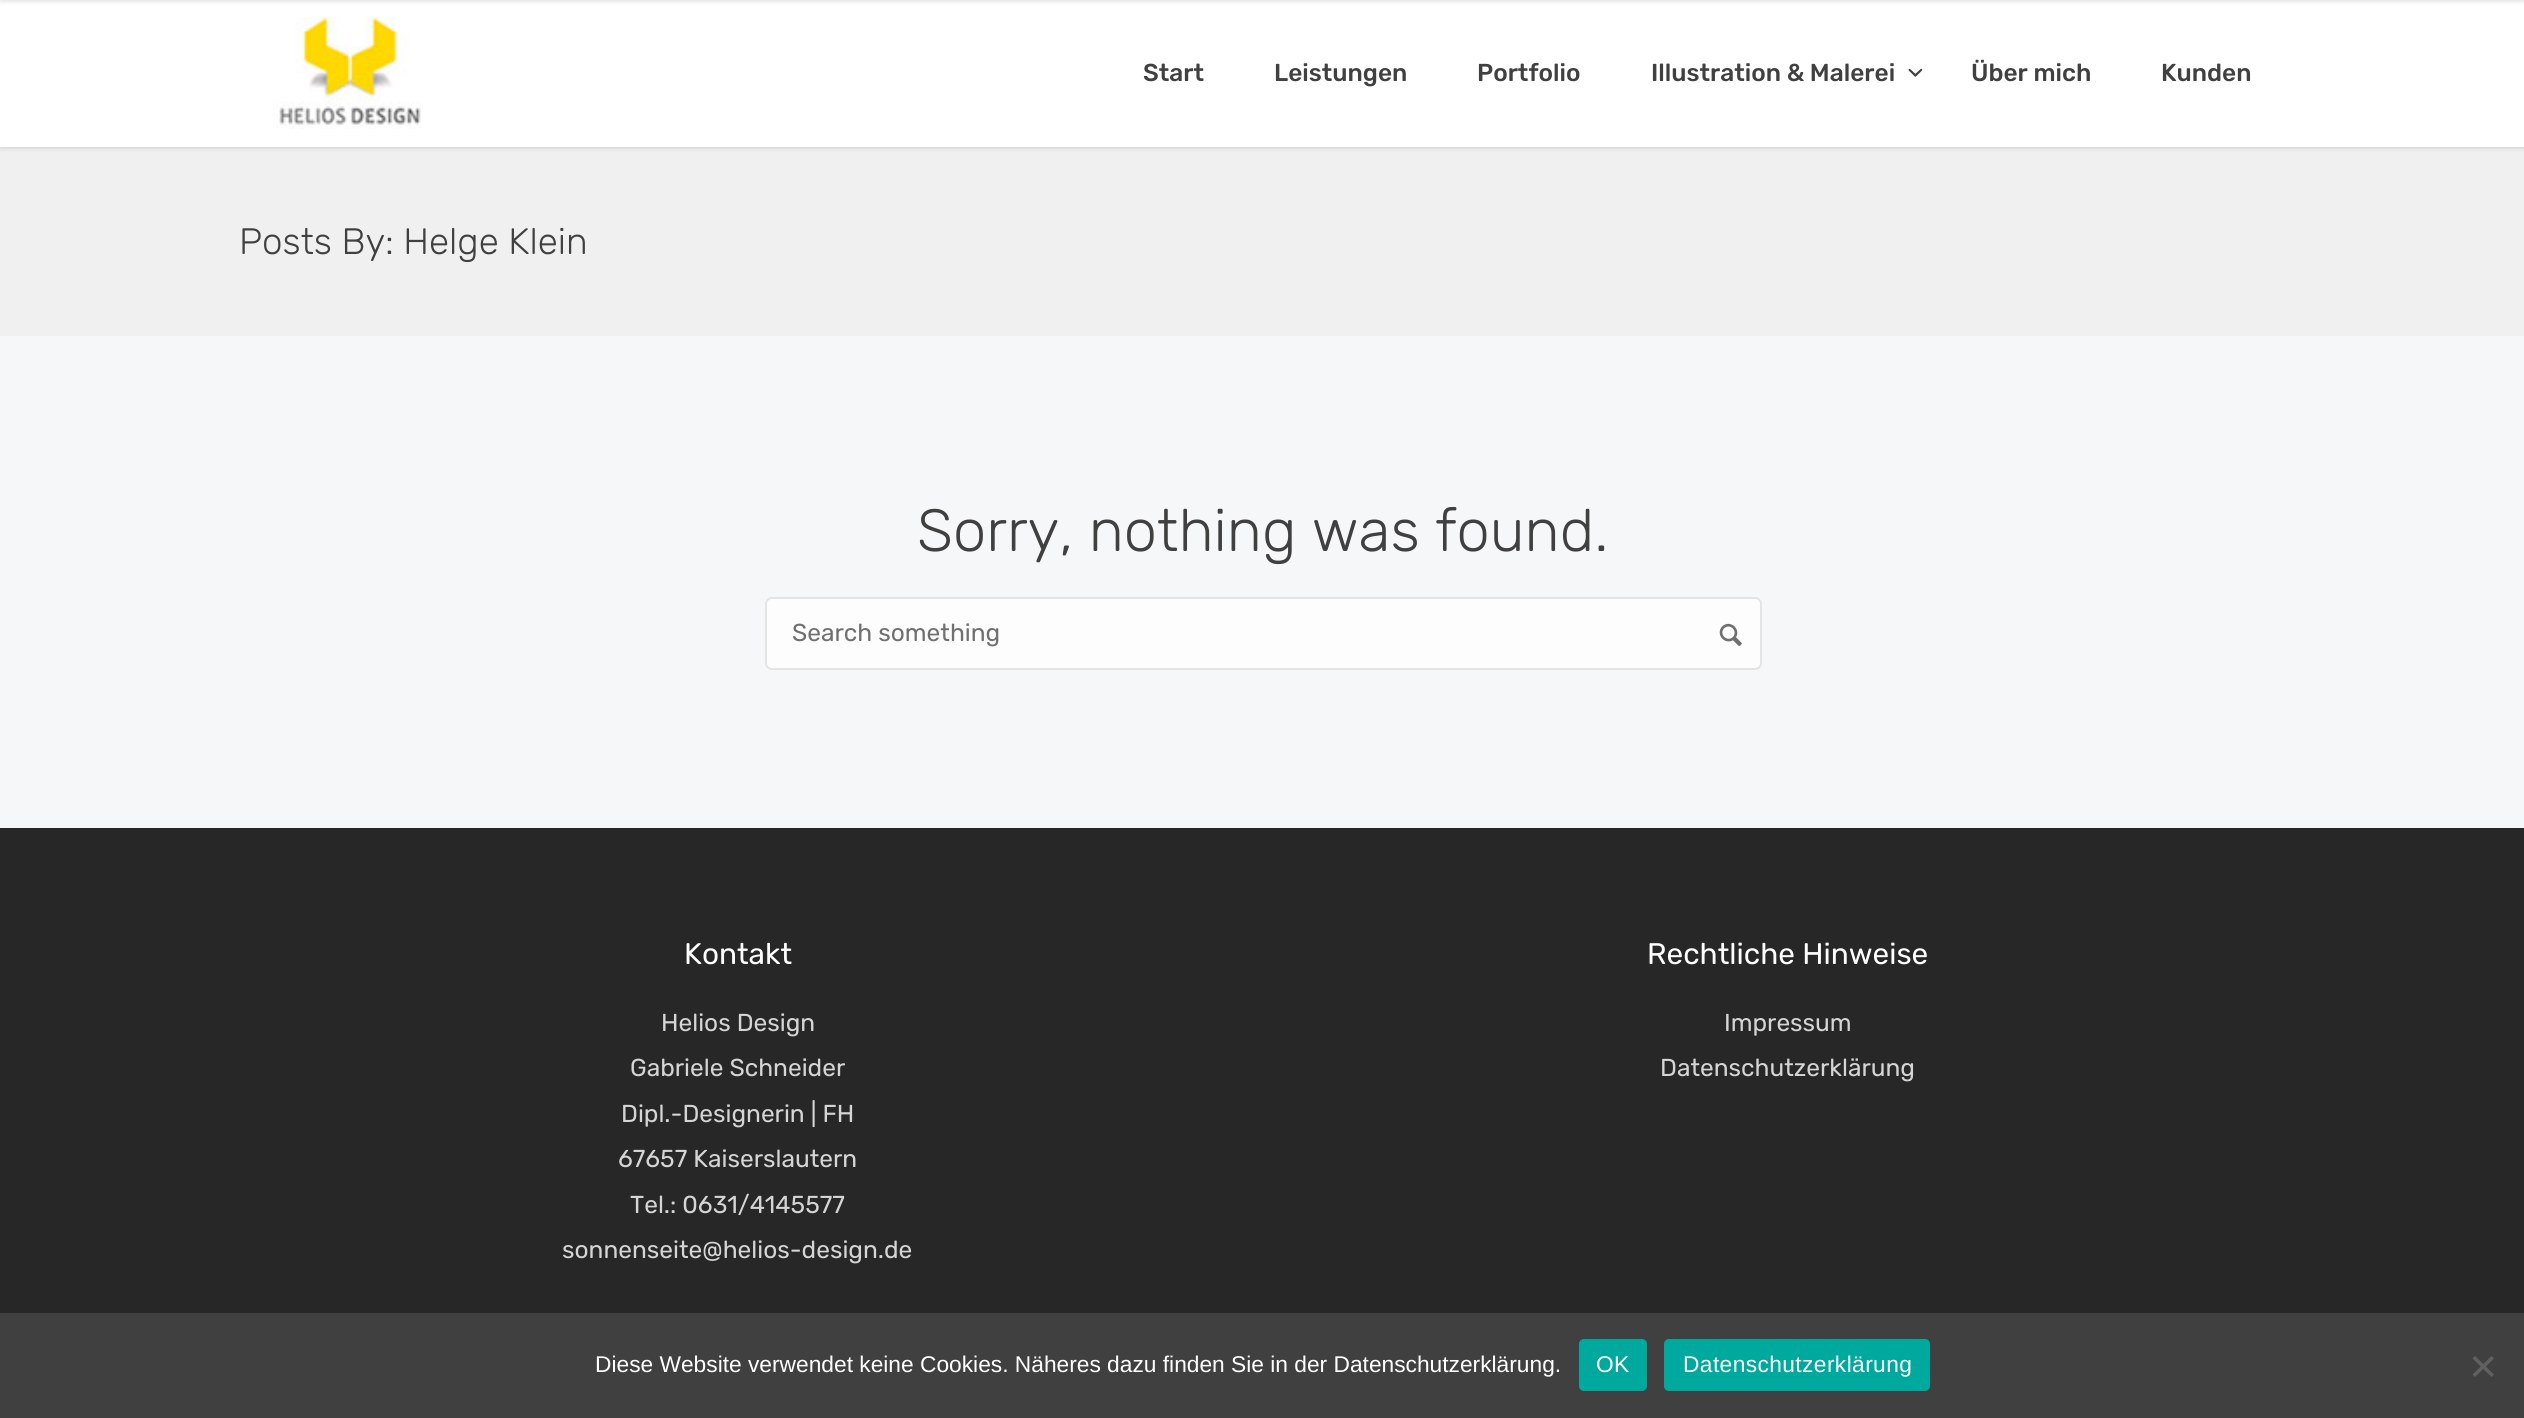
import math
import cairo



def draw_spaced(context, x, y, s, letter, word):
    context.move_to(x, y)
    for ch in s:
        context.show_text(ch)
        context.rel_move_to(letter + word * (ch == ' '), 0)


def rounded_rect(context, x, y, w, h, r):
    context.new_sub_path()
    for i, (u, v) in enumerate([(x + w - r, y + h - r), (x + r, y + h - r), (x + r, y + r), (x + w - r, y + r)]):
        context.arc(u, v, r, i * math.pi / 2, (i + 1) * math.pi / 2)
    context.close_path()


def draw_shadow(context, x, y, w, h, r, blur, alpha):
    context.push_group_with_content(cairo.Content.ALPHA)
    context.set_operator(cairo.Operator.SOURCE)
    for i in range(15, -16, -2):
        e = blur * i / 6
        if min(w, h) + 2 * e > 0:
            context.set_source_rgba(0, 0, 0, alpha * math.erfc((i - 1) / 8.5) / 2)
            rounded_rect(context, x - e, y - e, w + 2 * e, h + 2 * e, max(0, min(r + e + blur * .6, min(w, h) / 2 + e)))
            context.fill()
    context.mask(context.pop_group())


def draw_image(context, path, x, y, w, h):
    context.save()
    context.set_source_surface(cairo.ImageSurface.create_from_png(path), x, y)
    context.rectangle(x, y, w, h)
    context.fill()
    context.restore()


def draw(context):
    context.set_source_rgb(246 / 255, 247 / 255, 248 / 255)
    context.paint()
    context.set_source_rgb(240 / 255, 240 / 255, 241 / 255)
    context.rectangle(0, 147, 2524, 189)
    context.fill()
    context.set_source_rgb(0, 0, 0)
    draw_shadow(context, 0, 2, 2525, 147, 0, 2, 0.1)
    context.set_source_rgb(1, 1, 1)
    context.rectangle(0, 0, 2524, 147)
    context.fill()
    context.set_source_rgb(0, 0, 0)
    draw_shadow(context, 0, -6, 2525, 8, 0, 2, 0.1)
    draw_image(context, "images/1.png", 273, 17, 148, 112)
    draw_image(context, "images/2.png", 1908, 68, 15, 9)
    context.set_source_rgb(253 / 255, 253 / 255, 254 / 255)
    rounded_rect(context, 765, 597, 997, 73, 7)
    context.fill()
    rounded_rect(context, 766, 598, 995, 71, 6)
    context.set_source_rgba(0, 0, 0, 0.1)
    context.stroke()
    draw_image(context, "images/3.png", 1719, 623, 23, 23)
    context.set_source_rgb(39 / 255, 39 / 255, 39 / 255)
    context.rectangle(0, 828, 2524, 485)
    context.fill()
    context.set_source_rgb(64 / 255, 64 / 255, 64 / 255)
    context.rectangle(0, 1313, 2524, 105)
    context.fill()
    context.set_source_rgb(0, 169 / 255, 157 / 255)
    rounded_rect(context, 1579, 1339, 68, 52, 5)
    context.fill()
    rounded_rect(context, 1664, 1339, 266, 52, 5)
    context.fill()
    context.set_source_rgb(96 / 255, 96 / 255, 96 / 255)
    context.new_path()
    context.move_to(2491.5, 1356)
    context.line_to(2494, 1358.5)
    context.line_to(2475, 1377)
    context.line_to(2472.5, 1374.5)
    context.close_path()
    context.fill()
    context.new_path()
    context.move_to(2472.5, 1358.5)
    context.line_to(2475, 1356)
    context.line_to(2494, 1374.5)
    context.line_to(2491.5, 1377)
    context.close_path()
    context.fill()
    context.select_font_face("Rubik Medium")
    context.set_font_size(24.5)
    context.set_source_rgb(64 / 255, 64 / 255, 64 / 255)
    context.move_to(1143, 81)
    context.show_text("Start")
    context.move_to(1274, 81)
    context.show_text("Leistungen")
    context.move_to(1477, 81)
    context.show_text("Portfolio")
    context.move_to(1651, 81)
    context.show_text("Illustration & Malerei")
    context.move_to(1971, 81)
    context.show_text("Über mich")
    context.move_to(2161, 81)
    context.show_text("Kunden")
    context.select_font_face("Rubik Light")
    context.set_font_size(36.75)
    context.move_to(239, 254)
    context.show_text("Posts By: Helge Klein")
    context.set_font_size(59.5)
    context.move_to(917, 551)
    context.show_text("Sorry, nothing was found.")
    context.select_font_face("Rubik")
    context.set_font_size(24.5)
    context.set_source_rgb(112 / 255, 112 / 255, 112 / 255)
    context.move_to(792, 641)
    context.show_text("Search something")
    context.set_font_size(29.75)
    context.set_source_rgb(1, 1, 1)
    context.move_to(684, 964)
    context.show_text("Kontakt")
    context.set_font_size(24.5)
    context.set_source_rgb(213 / 255, 213 / 255, 213 / 255)
    context.move_to(661, 1031)
    context.show_text("Helios Design")
    context.move_to(630, 1076)
    context.show_text("Gabriele Schneider")
    context.move_to(621, 1122)
    context.show_text("Dipl.-Designerin | FH")
    context.move_to(618, 1167)
    context.show_text("67657 Kaiserslautern")
    context.move_to(630, 1213)
    context.show_text("Tel.: 0631/4145577")
    context.move_to(562, 1258)
    context.show_text("sonnenseite@helios-design.de")
    context.set_font_size(29.75)
    context.set_source_rgb(1, 1, 1)
    context.move_to(1647, 964)
    context.show_text("Rechtliche Hinweise")
    context.set_font_size(24.5)
    context.set_source_rgb(213 / 255, 213 / 255, 213 / 255)
    context.move_to(1724, 1031)
    context.show_text("Impressum")
    context.move_to(1660, 1076)
    context.show_text("Datenschutzerklärung")
    context.select_font_face("Liberation Sans")
    context.set_font_size(22.75)
    context.set_source_rgb(1, 1, 1)
    context.move_to(595, 1372)
    context.show_text("Diese Website verwendet keine Cookies. Näheres dazu finden Sie in der Datenschutzerklärung.")
    draw_spaced(context, 1596, 1372, "OK", 0.4, 0)
    draw_spaced(context, 1683, 1372, "Datenschutzerklärung", 0.4, 0)


surface = cairo.ImageSurface(cairo.Format.RGB24, 2524, 1418)
context = cairo.Context(surface)
options = cairo.FontOptions()
options.set_hint_metrics(cairo.HintMetrics.OFF)
options.set_hint_style(cairo.HintStyle.NONE)
context.set_font_options(options)
context.set_miter_limit(4)
draw(context)
surface.write_to_png("out.png")
